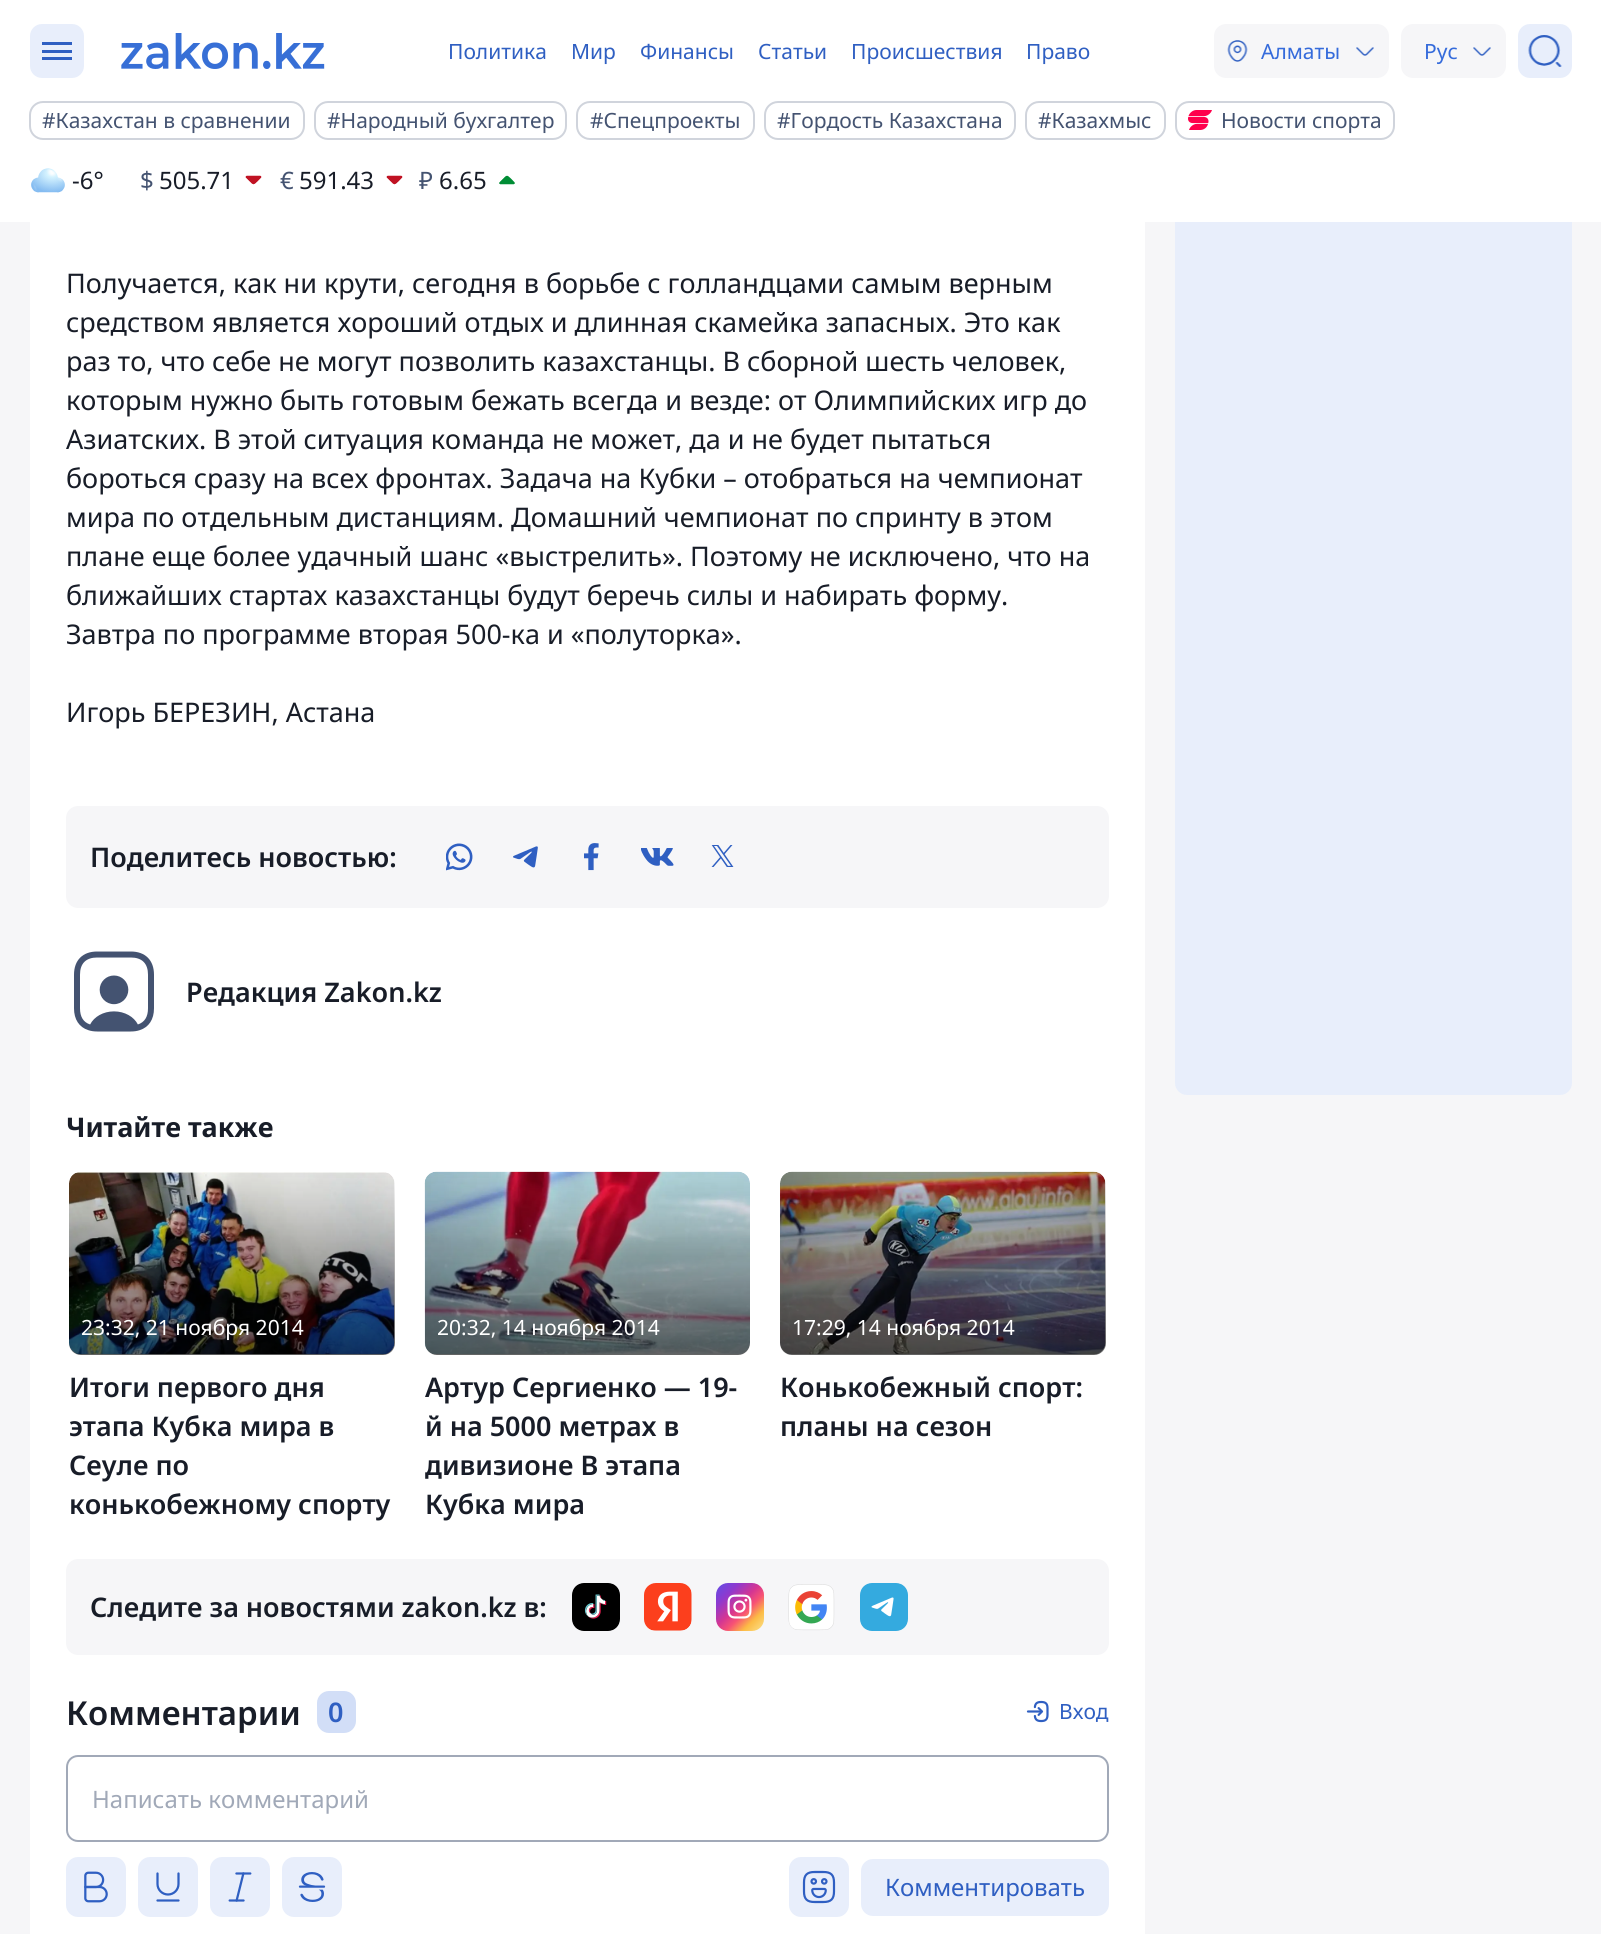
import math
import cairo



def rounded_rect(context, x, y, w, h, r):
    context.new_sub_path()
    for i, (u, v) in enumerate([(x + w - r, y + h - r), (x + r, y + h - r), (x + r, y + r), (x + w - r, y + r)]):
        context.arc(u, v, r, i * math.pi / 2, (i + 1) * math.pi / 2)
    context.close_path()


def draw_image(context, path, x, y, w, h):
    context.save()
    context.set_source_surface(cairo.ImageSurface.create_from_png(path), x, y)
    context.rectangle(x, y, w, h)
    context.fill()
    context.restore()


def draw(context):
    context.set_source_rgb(246 / 255, 246 / 255, 248 / 255)
    context.paint()
    context.set_source_rgb(232 / 255, 238 / 255, 251 / 255)
    rounded_rect(context, 1175, 195, 397, 900, 12)
    context.fill()
    context.set_source_rgb(1, 1, 1)
    context.rectangle(0, 0, 1601, 222)
    context.fill()
    context.set_source_rgb(232 / 255, 238 / 255, 251 / 255)
    rounded_rect(context, 30, 24, 54, 54, 12)
    context.fill()
    context.set_source_rgb(47 / 255, 95 / 255, 194 / 255)
    context.rectangle(42, 42, 30, 3)
    context.fill()
    context.rectangle(42, 50, 30, 3)
    context.fill()
    context.rectangle(42, 57, 30, 3)
    context.fill()
    draw_image(context, "images/1.png", 121, 33, 204, 36)
    context.set_source_rgb(246 / 255, 246 / 255, 248 / 255)
    rounded_rect(context, 1214, 24, 175, 54, 12)
    context.fill()
    draw_image(context, "images/2.png", 1227, 40, 21, 22)
    draw_image(context, "images/3.png", 1356, 47, 18, 9)
    rounded_rect(context, 1401, 24, 105, 54, 12)
    context.fill()
    draw_image(context, "images/3.png", 1473, 47, 18, 9)
    context.set_source_rgb(232 / 255, 238 / 255, 251 / 255)
    rounded_rect(context, 1518, 24, 54, 54, 12)
    context.fill()
    draw_image(context, "images/4.png", 1528, 35, 34, 32)
    rounded_rect(context, 30, 102, 274, 37, 13)
    context.set_source_rgb(208 / 255, 212 / 255, 220 / 255)
    context.stroke()
    rounded_rect(context, 315, 102, 251, 37, 13)
    context.stroke()
    rounded_rect(context, 577, 102, 177, 37, 13)
    context.stroke()
    rounded_rect(context, 765, 102, 250, 37, 13)
    context.stroke()
    rounded_rect(context, 1026, 102, 139, 37, 13)
    context.stroke()
    draw_image(context, "images/5.png", 1188, 110, 24, 20)
    rounded_rect(context, 1176, 102, 218, 37, 13)
    context.stroke()
    draw_image(context, "images/6.png", 31, 168, 34, 25)
    draw_image(context, "images/7.png", 245, 175, 17, 10)
    draw_image(context, "images/7.png", 386, 175, 17, 10)
    draw_image(context, "images/8.png", 499, 175, 16, 10)
    context.set_source_rgb(1, 1, 1)
    context.rectangle(30, 222, 1115, 1712)
    context.fill()
    context.set_source_rgb(246 / 255, 246 / 255, 248 / 255)
    rounded_rect(context, 66, 806, 1043, 102, 12)
    context.fill()
    draw_image(context, "images/9.png", 446, 843, 27, 28)
    draw_image(context, "images/10.png", 513, 846, 25, 22)
    draw_image(context, "images/11.png", 584, 843, 15, 28)
    draw_image(context, "images/12.png", 641, 848, 33, 18)
    draw_image(context, "images/13.png", 711, 845, 23, 22)
    draw_image(context, "images/14.png", 74, 951, 80, 81)
    draw_image(context, "images/15.png", 69, 1172, 326, 183)
    gradient = cairo.LinearGradient(232, 1172, 232, 1355)
    gradient.add_color_stop_rgba(0, 0, 0, 0, 0)
    gradient.add_color_stop_rgba(1, 0, 0, 0, 0.6)
    context.set_source(gradient)
    rounded_rect(context, 69, 1172, 326, 183, 12)
    context.fill()
    draw_image(context, "images/16.png", 424, 1171, 326, 184)
    gradient = cairo.LinearGradient(587, 1172, 587, 1355)
    gradient.add_color_stop_rgba(0, 0, 0, 0, 0)
    gradient.add_color_stop_rgba(1, 0, 0, 0, 0.6)
    context.set_source(gradient)
    rounded_rect(context, 425, 1172, 325, 183, 12)
    context.fill()
    draw_image(context, "images/17.png", 780, 1171, 326, 184)
    gradient = cairo.LinearGradient(943, 1172, 943, 1355)
    gradient.add_color_stop_rgba(0, 0, 0, 0, 0)
    gradient.add_color_stop_rgba(1, 0, 0, 0, 0.6)
    context.set_source(gradient)
    rounded_rect(context, 780, 1172, 326, 183, 12)
    context.fill()
    context.set_source_rgb(246 / 255, 246 / 255, 248 / 255)
    rounded_rect(context, 66, 1559, 1043, 96, 12)
    context.fill()
    draw_image(context, "images/18.png", 572, 1583, 48, 48)
    draw_image(context, "images/19.png", 644, 1583, 48, 48)
    draw_image(context, "images/20.png", 716, 1583, 48, 48)
    draw_image(context, "images/21.png", 788, 1584, 47, 47)
    draw_image(context, "images/22.png", 860, 1583, 48, 48)
    context.set_source_rgb(210 / 255, 222 / 255, 247 / 255)
    rounded_rect(context, 317, 1691, 39, 42, 12)
    context.fill()
    draw_image(context, "images/23.png", 1026, 1700, 23, 23)
    rounded_rect(context, 67, 1756, 1041, 85, 11)
    context.set_source_rgb(161 / 255, 169 / 255, 184 / 255)
    context.stroke()
    context.set_source_rgb(232 / 255, 238 / 255, 251 / 255)
    rounded_rect(context, 66, 1857, 60, 60, 12)
    context.fill()
    draw_image(context, "images/24.png", 84, 1871, 24, 32)
    rounded_rect(context, 138, 1857, 60, 60, 12)
    context.fill()
    draw_image(context, "images/25.png", 156, 1872, 24, 30)
    rounded_rect(context, 210, 1857, 60, 60, 12)
    context.fill()
    draw_image(context, "images/26.png", 228, 1872, 24, 30)
    rounded_rect(context, 282, 1857, 60, 60, 12)
    context.fill()
    draw_image(context, "images/27.png", 298, 1872, 28, 30)
    rounded_rect(context, 789, 1857, 60, 60, 12)
    context.fill()
    draw_image(context, "images/28.png", 802, 1870, 34, 34)
    rounded_rect(context, 861, 1859, 248, 57, 12)
    context.fill()
    context.select_font_face("Noto Sans")
    context.set_font_size(21)
    context.set_source_rgb(47 / 255, 95 / 255, 194 / 255)
    context.move_to(448, 59)
    context.show_text("Политика")
    context.move_to(571, 59)
    context.show_text("Мир")
    context.move_to(640, 59)
    context.show_text("Финансы")
    context.move_to(758, 59)
    context.show_text("Статьи")
    context.move_to(851, 59)
    context.show_text("Происшествия")
    context.move_to(1026, 59)
    context.show_text("Право")
    context.set_source_rgb(53 / 255, 107 / 255, 219 / 255)
    context.move_to(1261, 59)
    context.show_text("Алматы")
    context.move_to(1424, 59)
    context.show_text("Рус")
    context.set_source_rgb(68 / 255, 83 / 255, 113 / 255)
    context.move_to(42, 128)
    context.show_text("#Казахстан в сравнении")
    context.move_to(327, 128)
    context.show_text("#Народный бухгалтер")
    context.move_to(590, 128)
    context.show_text("#Спецпроекты")
    context.move_to(777, 128)
    context.show_text("#Гордость Казахстана")
    context.move_to(1038, 128)
    context.show_text("#Казахмыс")
    context.move_to(1221, 128)
    context.show_text("Новости спорта")
    context.set_font_size(24)
    context.set_source_rgb(24 / 255, 29 / 255, 40 / 255)
    context.move_to(72, 189)
    context.show_text("-6°")
    context.set_source_rgb(68 / 255, 83 / 255, 113 / 255)
    context.move_to(140, 189)
    context.show_text("$")
    context.set_source_rgb(24 / 255, 29 / 255, 40 / 255)
    context.move_to(159, 189)
    context.show_text("505.71")
    context.set_source_rgb(68 / 255, 83 / 255, 113 / 255)
    context.move_to(280, 189)
    context.show_text("€")
    context.set_source_rgb(24 / 255, 29 / 255, 40 / 255)
    context.move_to(299, 189)
    context.show_text("591.43")
    context.set_source_rgb(68 / 255, 83 / 255, 113 / 255)
    context.move_to(419, 189)
    context.show_text("₽")
    context.set_source_rgb(24 / 255, 29 / 255, 40 / 255)
    context.move_to(439, 189)
    context.show_text("6.65")
    context.set_font_size(27)
    context.move_to(66, 293)
    context.show_text("Получается, как ни крути, сегодня в борьбе с голландцами самым верным")
    context.move_to(66, 332)
    context.show_text("средством является хороший отдых и длинная скамейка запасных. Это как")
    context.move_to(66, 371)
    context.show_text("раз то, что себе не могут позволить казахстанцы. В сборной шесть человек,")
    context.move_to(66, 410)
    context.show_text("которым нужно быть готовым бежать всегда и везде: от Олимпийских игр до")
    context.move_to(66, 449)
    context.show_text("Азиатских. В этой ситуация команда не может, да и не будет пытаться")
    context.move_to(66, 488)
    context.show_text("бороться сразу на всех фронтах. Задача на Кубки – отобраться на чемпионат")
    context.move_to(66, 527)
    context.show_text("мира по отдельным дистанциям. Домашний чемпионат по спринту в этом")
    context.move_to(66, 566)
    context.show_text("плане еще более удачный шанс «выстрелить». Поэтому не исключено, что на")
    context.move_to(66, 605)
    context.show_text("ближайших стартах казахстанцы будут беречь силы и набирать форму.")
    context.move_to(66, 644)
    context.show_text("Завтра по программе вторая 500-ка и «полуторка».")
    context.move_to(66, 722)
    context.show_text("Игорь БЕРЕЗИН, Астана")
    context.select_font_face("Noto Sans SemiBold")
    context.move_to(90, 867)
    context.show_text("Поделитесь новостью:")
    context.move_to(186, 1002)
    context.show_text("Редакция Zakon.kz")
    context.select_font_face("Noto Sans", cairo.FontSlant.NORMAL, cairo.FontWeight.BOLD)
    context.move_to(66, 1137)
    context.show_text("Читайте также")
    context.select_font_face("Noto Sans")
    context.set_font_size(21)
    context.set_source_rgb(1, 1, 1)
    context.move_to(81, 1335)
    context.show_text("23:32, 21 ноября 2014")
    context.select_font_face("Noto Sans SemiBold")
    context.set_font_size(27)
    context.set_source_rgb(24 / 255, 29 / 255, 40 / 255)
    context.move_to(69, 1397)
    context.show_text("Итоги первого дня")
    context.move_to(69, 1436)
    context.show_text("этапа Кубка мира в")
    context.move_to(69, 1475)
    context.show_text("Сеуле по")
    context.move_to(69, 1514)
    context.show_text("конькобежному спорту")
    context.select_font_face("Noto Sans")
    context.set_font_size(21)
    context.set_source_rgb(1, 1, 1)
    context.move_to(437, 1335)
    context.show_text("20:32, 14 ноября 2014")
    context.select_font_face("Noto Sans SemiBold")
    context.set_font_size(27)
    context.set_source_rgb(24 / 255, 29 / 255, 40 / 255)
    context.move_to(425, 1397)
    context.show_text("Артур Сергиенко — 19-")
    context.move_to(425, 1436)
    context.show_text("й на 5000 метрах в")
    context.move_to(425, 1475)
    context.show_text("дивизионе В этапа")
    context.move_to(425, 1514)
    context.show_text("Кубка мира")
    context.select_font_face("Noto Sans")
    context.set_font_size(21)
    context.set_source_rgb(1, 1, 1)
    context.move_to(792, 1335)
    context.show_text("17:29, 14 ноября 2014")
    context.select_font_face("Noto Sans SemiBold")
    context.set_font_size(27)
    context.set_source_rgb(24 / 255, 29 / 255, 40 / 255)
    context.move_to(780, 1397)
    context.show_text("Конькобежный спорт:")
    context.move_to(780, 1436)
    context.show_text("планы на сезон")
    context.move_to(90, 1617)
    context.show_text("Следите за новостями zakon.kz в:")
    context.set_font_size(33)
    context.move_to(66, 1725)
    context.show_text("Комментарии")
    context.set_font_size(27)
    context.set_source_rgb(47 / 255, 95 / 255, 194 / 255)
    context.move_to(328, 1722)
    context.show_text("0")
    context.select_font_face("Noto Sans")
    context.set_font_size(21)
    context.move_to(1059, 1719)
    context.show_text("Вход")
    context.set_font_size(24)
    context.set_source_rgb(161 / 255, 169 / 255, 184 / 255)
    context.move_to(92, 1808)
    context.show_text("Написать комментарий")
    context.set_source_rgb(47 / 255, 95 / 255, 194 / 255)
    context.move_to(885, 1896)
    context.show_text("Комментировать")


surface = cairo.ImageSurface(cairo.Format.RGB24, 1601, 1934)
context = cairo.Context(surface)
options = cairo.FontOptions()
options.set_hint_metrics(cairo.HintMetrics.OFF)
options.set_hint_style(cairo.HintStyle.NONE)
context.set_font_options(options)
context.set_miter_limit(4)
draw(context)
surface.write_to_png("out.png")
